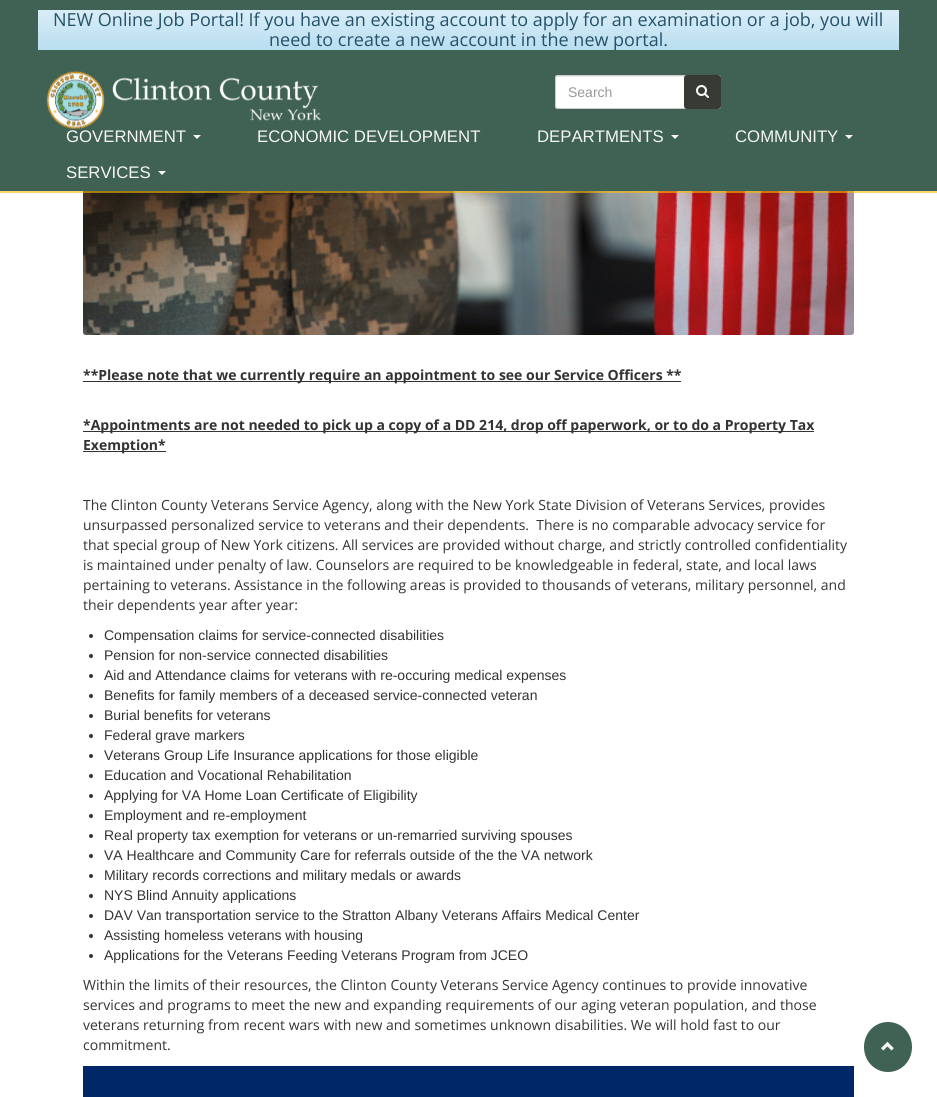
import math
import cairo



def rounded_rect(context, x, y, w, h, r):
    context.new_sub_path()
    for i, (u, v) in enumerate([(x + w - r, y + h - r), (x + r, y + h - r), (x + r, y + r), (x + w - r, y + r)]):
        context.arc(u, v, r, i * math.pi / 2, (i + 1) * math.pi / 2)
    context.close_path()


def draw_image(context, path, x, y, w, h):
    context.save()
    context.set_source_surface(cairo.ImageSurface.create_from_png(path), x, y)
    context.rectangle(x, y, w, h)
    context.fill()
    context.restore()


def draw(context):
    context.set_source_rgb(1, 1, 1)
    context.paint()
    draw_image(context, "images/3.png", 83, 191, 771, 144)
    context.set_source_rgba(250 / 255, 185 / 255, 12 / 255, 0.6)
    context.rectangle(0, 191, 937, 2)
    context.fill()
    context.set_source_rgb(63 / 255, 98 / 255, 84 / 255)
    context.rectangle(0, 0, 937, 191)
    context.fill()
    gradient = cairo.LinearGradient(469, 10, 469, 50)
    gradient.add_color_stop_rgba(0, 217 / 255, 237 / 255, 247 / 255, 1)
    gradient.add_color_stop_rgba(1, 185 / 255, 222 / 255, 240 / 255, 1)
    context.set_source(gradient)
    context.rectangle(38, 10, 861, 40)
    context.fill()
    draw_image(context, "images/1.png", 46, 71, 275, 59)
    context.set_source_rgb(1, 1, 1)
    rounded_rect(context, 555, 75, 166, 34, 3)
    context.fill()
    context.set_source_rgb(236 / 255, 236 / 255, 236 / 255)
    context.new_path()
    context.move_to(558, 77)
    context.line_to(718, 77)
    context.curve_to(719, 77, 720, 78, 720, 79)
    context.curve_to(720, 78, 720, 76, 718, 76)
    context.line_to(558, 76)
    context.curve_to(556, 76, 556, 78, 556, 79)
    context.curve_to(556, 78, 557, 77, 558, 77)
    context.close_path()
    context.fill()
    rounded_rect(context, 555.5, 75.5, 165, 33, 2.5)
    context.set_source_rgb(204 / 255, 204 / 255, 204 / 255)
    context.set_line_width(1)
    context.stroke()
    context.set_source_rgb(55 / 255, 59 / 255, 52 / 255)
    rounded_rect(context, 684, 75, 37, 34, 3)
    context.fill()
    context.set_source_rgba(0, 0, 0, 0.07)
    context.new_path()
    context.move_to(687, 76)
    context.line_to(718, 76)
    context.curve_to(720, 76, 721, 77, 721, 79)
    context.curve_to(721, 74, 717, 75, 713, 75)
    context.line_to(692, 75)
    context.curve_to(688, 75, 684, 74, 684, 79)
    context.curve_to(684, 77, 685, 76, 687, 76)
    context.close_path()
    context.fill()
    draw_image(context, "images/2.png", 696, 85, 13, 13)
    context.set_source_rgb(246 / 255, 246 / 255, 246 / 255)
    context.new_path()
    context.move_to(193, 135)
    context.line_to(201, 135)
    context.line_to(197, 139)
    context.close_path()
    context.fill()
    context.new_path()
    context.move_to(671, 135)
    context.line_to(679, 135)
    context.line_to(675, 139)
    context.close_path()
    context.fill()
    context.new_path()
    context.move_to(845, 135)
    context.line_to(853, 135)
    context.line_to(849, 139)
    context.close_path()
    context.fill()
    context.new_path()
    context.move_to(158, 171)
    context.line_to(166, 171)
    context.line_to(162, 175)
    context.close_path()
    context.fill()
    context.set_source_rgb(51 / 255, 51 / 255, 51 / 255)
    context.rectangle(83, 381, 598, 1)
    context.fill()
    context.rectangle(83, 431, 731, 1)
    context.fill()
    context.rectangle(83, 451, 83, 1)
    context.fill()
    context.arc(91, 636, 2, 0, 2 * math.pi)
    context.fill()
    context.arc(91, 656, 2, 0, 2 * math.pi)
    context.fill()
    context.arc(91, 676, 2, 0, 2 * math.pi)
    context.fill()
    context.arc(91, 696, 2, 0, 2 * math.pi)
    context.fill()
    context.arc(91, 716, 2, 0, 2 * math.pi)
    context.fill()
    context.arc(91, 736, 2, 0, 2 * math.pi)
    context.fill()
    context.arc(91, 756, 2, 0, 2 * math.pi)
    context.fill()
    context.arc(91, 776, 2, 0, 2 * math.pi)
    context.fill()
    context.arc(91, 796, 2, 0, 2 * math.pi)
    context.fill()
    context.arc(91, 816, 2, 0, 2 * math.pi)
    context.fill()
    context.arc(91, 836, 2, 0, 2 * math.pi)
    context.fill()
    context.arc(91, 856, 2, 0, 2 * math.pi)
    context.fill()
    context.arc(91, 876, 2, 0, 2 * math.pi)
    context.fill()
    context.arc(91, 896, 2, 0, 2 * math.pi)
    context.fill()
    context.arc(91, 916, 2, 0, 2 * math.pi)
    context.fill()
    context.arc(91, 936, 2, 0, 2 * math.pi)
    context.fill()
    context.arc(91, 956, 2, 0, 2 * math.pi)
    context.fill()
    context.set_source_rgb(0, 40 / 255, 104 / 255)
    context.rectangle(83, 1066, 771, 31)
    context.fill()
    context.set_source_rgb(63 / 255, 98 / 255, 84 / 255)
    context.new_path()
    context.move_to(888, 1022)
    context.curve_to(901.5, 1022, 912, 1033, 912, 1047)
    context.curve_to(912, 1061, 901.5, 1072, 888, 1072)
    context.curve_to(874.5, 1072, 864, 1061, 864, 1047)
    context.curve_to(864, 1033, 874.5, 1022, 888, 1022)
    context.close_path()
    context.fill()
    draw_image(context, "images/4.png", 881, 1041, 13, 10)
    context.select_font_face("Open Sans")
    context.set_font_size(18)
    context.set_source_rgb(36 / 255, 82 / 255, 105 / 255)
    context.move_to(53, 26)
    context.show_text("NEW Online Job Portal! If you have an existing account to apply for an examination or a job, you will")
    context.move_to(269, 46)
    context.show_text("need to create a new account in the new portal.")
    context.select_font_face("Liberation Sans")
    context.set_font_size(14)
    context.set_source_rgb(153 / 255, 153 / 255, 153 / 255)
    context.move_to(568, 97)
    context.show_text("Search")
    context.set_font_size(16.75)
    context.set_source_rgb(246 / 255, 246 / 255, 246 / 255)
    context.move_to(66, 142)
    context.show_text("GOVERNMENT")
    context.move_to(257, 142)
    context.show_text("ECONOMIC DEVELOPMENT")
    context.move_to(537, 142)
    context.show_text("DEPARTMENTS")
    context.move_to(735, 142)
    context.show_text("COMMUNITY")
    context.move_to(66, 178)
    context.show_text("SERVICES")
    context.select_font_face("Open Sans", cairo.FontSlant.NORMAL, cairo.FontWeight.BOLD)
    context.set_font_size(14)
    context.set_source_rgb(51 / 255, 51 / 255, 51 / 255)
    context.move_to(83, 380)
    context.show_text("**Please note that we currently require an appointment to see our Service Officers **")
    context.move_to(83, 430)
    context.show_text("*Appointments are not needed to pick up a copy of a DD 214, drop off paperwork, or to do a Property Tax")
    context.move_to(83, 450)
    context.show_text("Exemption*")
    context.select_font_face("Open Sans")
    context.move_to(83, 510)
    context.show_text("The Clinton County Veterans Service Agency, along with the New York State Division of Veterans Services, provides")
    context.move_to(83, 530)
    context.show_text("unsurpassed personalized service to veterans and their dependents.  There is no comparable advocacy service for")
    context.move_to(83, 550)
    context.show_text("that special group of New York citizens. All services are provided without charge, and strictly controlled confidentiality")
    context.move_to(83, 570)
    context.show_text("is maintained under penalty of law. Counselors are required to be knowledgeable in federal, state, and local laws")
    context.move_to(83, 590)
    context.show_text("pertaining to veterans. Assistance in the following areas is provided to thousands of veterans, military personnel, and")
    context.move_to(83, 610)
    context.show_text("their dependents year after year:")
    context.select_font_face("Liberation Sans")
    context.move_to(104, 640)
    context.show_text("Compensation claims for service-connected disabilities")
    context.move_to(104, 660)
    context.show_text("Pension for non-service connected disabilities")
    context.move_to(104, 680)
    context.show_text("Aid and Attendance claims for veterans with re-occuring medical expenses")
    context.move_to(104, 700)
    context.show_text("Benefits for family members of a deceased service-connected veteran")
    context.move_to(104, 720)
    context.show_text("Burial benefits for veterans")
    context.move_to(104, 740)
    context.show_text("Federal grave markers")
    context.move_to(104, 760)
    context.show_text("Veterans Group Life Insurance applications for those eligible")
    context.move_to(104, 780)
    context.show_text("Education and Vocational Rehabilitation")
    context.move_to(104, 800)
    context.show_text("Applying for VA Home Loan Certificate of Eligibility")
    context.move_to(104, 820)
    context.show_text("Employment and re-employment")
    context.move_to(104, 840)
    context.show_text("Real property tax exemption for veterans or un-remarried surviving spouses")
    context.move_to(104, 860)
    context.show_text("VA Healthcare and Community Care for referrals outside of the the VA network")
    context.move_to(104, 880)
    context.show_text("Military records corrections and military medals or awards")
    context.move_to(104, 900)
    context.show_text("NYS Blind Annuity applications")
    context.move_to(104, 920)
    context.show_text("DAV Van transportation service to the Stratton Albany Veterans Affairs Medical Center")
    context.move_to(104, 940)
    context.show_text("Assisting homeless veterans with housing")
    context.move_to(104, 960)
    context.show_text("Applications for the Veterans Feeding Veterans Program from JCEO")
    context.select_font_face("Open Sans")
    context.move_to(83, 990)
    context.show_text("Within the limits of their resources, the Clinton County Veterans Service Agency continues to provide innovative")
    context.move_to(83, 1010)
    context.show_text("services and programs to meet the new and expanding requirements of our aging veteran population, and those")
    context.move_to(83, 1030)
    context.show_text("veterans returning from recent wars with new and sometimes unknown disabilities. We will hold fast to our")
    context.move_to(83, 1050)
    context.show_text("commitment.")


surface = cairo.ImageSurface(cairo.Format.RGB24, 937, 1097)
context = cairo.Context(surface)
options = cairo.FontOptions()
options.set_hint_metrics(cairo.HintMetrics.OFF)
options.set_hint_style(cairo.HintStyle.NONE)
context.set_font_options(options)
context.set_miter_limit(4)
draw(context)
surface.write_to_png("out.png")
